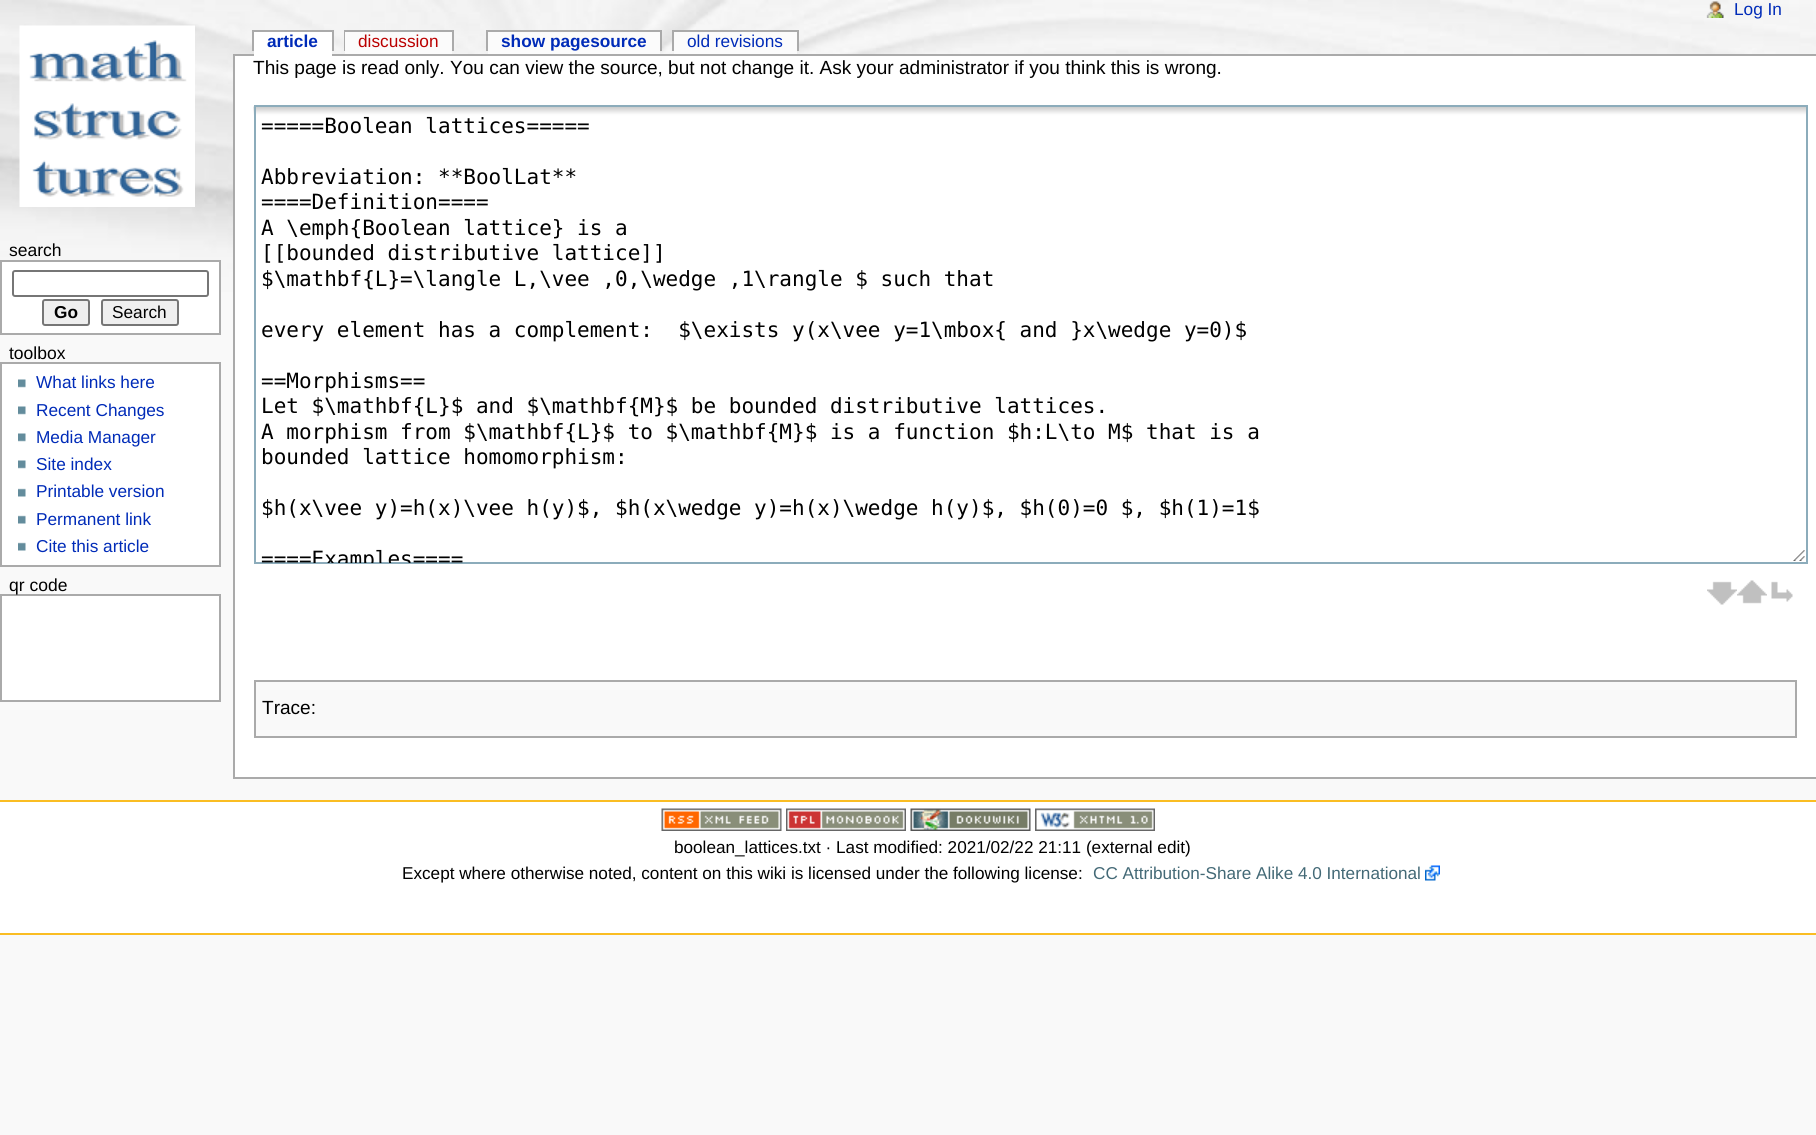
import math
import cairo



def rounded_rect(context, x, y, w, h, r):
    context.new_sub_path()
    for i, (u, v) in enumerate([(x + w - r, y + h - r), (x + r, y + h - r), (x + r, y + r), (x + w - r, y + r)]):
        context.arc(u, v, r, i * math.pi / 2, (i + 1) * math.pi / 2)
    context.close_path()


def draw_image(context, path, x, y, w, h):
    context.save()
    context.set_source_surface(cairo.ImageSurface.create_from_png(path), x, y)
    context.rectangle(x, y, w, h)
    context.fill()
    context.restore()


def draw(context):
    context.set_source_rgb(249 / 255, 249 / 255, 249 / 255)
    context.paint()
    draw_image(context, "images/1.png", 0, 0, 1816, 292)
    draw_image(context, "images/2.png", 1706, 1, 18, 17)
    draw_image(context, "images/3.png", 19, 25, 176, 182)
    context.set_source_rgb(170 / 255, 170 / 255, 170 / 255)
    context.rectangle(252, 30, 81, 2)
    context.fill()
    context.rectangle(332, 30, 2, 21)
    context.fill()
    context.rectangle(252, 30, 2, 21)
    context.fill()
    context.rectangle(233, 54, 1583, 2)
    context.fill()
    context.set_source_rgb(1, 1, 1)
    context.rectangle(254, 32, 78, 24)
    context.fill()
    context.set_source_rgb(170 / 255, 170 / 255, 170 / 255)
    context.rectangle(344, 30, 109, 2)
    context.fill()
    context.rectangle(452, 30, 2, 21)
    context.fill()
    context.rectangle(344, 30, 2, 21)
    context.fill()
    context.set_source_rgb(251 / 255, 251 / 255, 251 / 255)
    context.rectangle(345, 32, 107, 22)
    context.fill()
    context.set_source_rgb(170 / 255, 170 / 255, 170 / 255)
    context.rectangle(486, 30, 176, 2)
    context.fill()
    context.rectangle(660, 30, 2, 21)
    context.fill()
    context.rectangle(486, 30, 2, 21)
    context.fill()
    context.set_source_rgb(251 / 255, 251 / 255, 251 / 255)
    context.rectangle(488, 32, 172, 22)
    context.fill()
    context.set_source_rgb(170 / 255, 170 / 255, 170 / 255)
    context.rectangle(672, 30, 126, 2)
    context.fill()
    context.rectangle(797, 30, 2, 21)
    context.fill()
    context.rectangle(672, 30, 2, 21)
    context.fill()
    context.set_source_rgb(251 / 255, 251 / 255, 251 / 255)
    context.rectangle(674, 32, 123, 22)
    context.fill()
    context.set_source_rgb(1, 1, 1)
    context.rectangle(1, 261, 219, 73)
    context.fill_preserve()
    context.set_source_rgb(170 / 255, 170 / 255, 170 / 255)
    context.stroke()
    rounded_rect(context, 13, 271, 195, 25, 2)
    context.set_source_rgb(118 / 255, 118 / 255, 118 / 255)
    context.stroke()
    context.set_source_rgb(239 / 255, 239 / 255, 239 / 255)
    rounded_rect(context, 43, 300, 46, 25, 2)
    context.fill_preserve()
    context.set_source_rgb(118 / 255, 118 / 255, 118 / 255)
    context.stroke()
    context.set_source_rgb(239 / 255, 239 / 255, 239 / 255)
    rounded_rect(context, 102, 300, 76, 25, 2)
    context.fill_preserve()
    context.set_source_rgb(118 / 255, 118 / 255, 118 / 255)
    context.stroke()
    context.set_source_rgb(1, 1, 1)
    context.rectangle(1, 363, 219, 203)
    context.fill_preserve()
    context.set_source_rgb(170 / 255, 170 / 255, 170 / 255)
    context.stroke()
    draw_image(context, "images/4.png", 18, 379, 8, 9)
    draw_image(context, "images/4.png", 18, 406, 8, 9)
    draw_image(context, "images/4.png", 18, 433, 8, 9)
    draw_image(context, "images/4.png", 18, 460, 8, 9)
    draw_image(context, "images/5.png", 18, 488, 8, 9)
    draw_image(context, "images/5.png", 18, 515, 8, 9)
    draw_image(context, "images/5.png", 18, 542, 8, 9)
    context.set_source_rgb(1, 1, 1)
    context.rectangle(1, 595, 219, 106)
    context.fill_preserve()
    context.set_source_rgb(170 / 255, 170 / 255, 170 / 255)
    context.stroke()
    context.set_source_rgb(1, 1, 1)
    context.rectangle(235, 56, 1581, 721)
    context.fill()
    context.set_source_rgb(170 / 255, 170 / 255, 170 / 255)
    context.rectangle(233, 777, 1583, 2)
    context.fill()
    context.rectangle(233, 54, 2, 725)
    context.fill()
    draw_image(context, "images/6.png", 253, 106, 1553, 455)
    context.rectangle(255, 106, 1552, 457)
    context.set_source_rgb(140 / 255, 172 / 255, 187 / 255)
    context.stroke()
    draw_image(context, "images/7.png", 1707, 581, 30, 24)
    draw_image(context, "images/8.png", 1737, 580, 30, 24)
    draw_image(context, "images/9.png", 1771, 581, 22, 21)
    context.set_source_rgb(249 / 255, 249 / 255, 249 / 255)
    context.rectangle(255, 681, 1541, 56)
    context.fill_preserve()
    context.set_source_rgb(170 / 255, 170 / 255, 170 / 255)
    context.stroke()
    context.set_source_rgb(1, 1, 1)
    context.rectangle(0, 802, 1816, 131)
    context.fill()
    context.set_source_rgb(250 / 255, 189 / 255, 35 / 255)
    context.rectangle(0, 800, 1816, 2)
    context.fill()
    context.rectangle(0, 933, 1816, 2)
    context.fill()
    draw_image(context, "images/10.png", 661, 808, 121, 23)
    draw_image(context, "images/11.png", 786, 808, 120, 23)
    draw_image(context, "images/12.png", 910, 808, 121, 23)
    draw_image(context, "images/13.png", 1035, 808, 120, 23)
    draw_image(context, "images/14.png", 1425, 865, 15, 16)
    context.select_font_face("Liberation Sans")
    context.set_font_size(17.25)
    context.set_source_rgb(0, 43 / 255, 184 / 255)
    context.move_to(1734, 15)
    context.show_text("Log In")
    context.select_font_face("Liberation Sans", cairo.FontSlant.NORMAL, cairo.FontWeight.BOLD)
    context.move_to(267, 47)
    context.show_text("article")
    context.select_font_face("Liberation Sans")
    context.set_source_rgb(186 / 255, 0, 0)
    context.move_to(358, 47)
    context.show_text("discussion")
    context.select_font_face("Liberation Sans", cairo.FontSlant.NORMAL, cairo.FontWeight.BOLD)
    context.set_source_rgb(0, 43 / 255, 184 / 255)
    context.move_to(501, 47)
    context.show_text("show pagesource")
    context.select_font_face("Liberation Sans")
    context.move_to(687, 47)
    context.show_text("old revisions")
    context.set_font_size(17.5)
    context.set_source_rgb(0, 0, 0)
    context.move_to(9, 256)
    context.show_text("search")
    context.select_font_face("Liberation Sans", cairo.FontSlant.NORMAL, cairo.FontWeight.BOLD)
    context.set_font_size(17.25)
    context.move_to(54, 318)
    context.show_text("Go")
    context.select_font_face("Liberation Sans")
    context.move_to(112, 318)
    context.show_text("Search")
    context.set_font_size(17.5)
    context.move_to(9, 359)
    context.show_text("toolbox")
    context.set_font_size(17.25)
    context.set_source_rgb(0, 43 / 255, 184 / 255)
    context.move_to(36, 388)
    context.show_text("What links here")
    context.move_to(36, 416)
    context.show_text("Recent Changes")
    context.move_to(36, 443)
    context.show_text("Media Manager")
    context.move_to(36, 470)
    context.show_text("Site index")
    context.move_to(36, 497)
    context.show_text("Printable version")
    context.move_to(36, 525)
    context.show_text("Permanent link")
    context.move_to(36, 552)
    context.show_text("Cite this article")
    context.set_font_size(17.5)
    context.set_source_rgb(0, 0, 0)
    context.move_to(9, 591)
    context.show_text("qr code")
    context.set_font_size(19.05)
    context.move_to(253, 74)
    context.show_text("This page is read only. You can view the source, but not change it. Ask your administrator if you think this is wrong.")
    context.select_font_face("DejaVu Sans Mono")
    context.set_font_size(21)
    context.move_to(261, 133)
    context.show_text("=====Boolean lattices=====")
    context.move_to(261, 184)
    context.show_text("Abbreviation: **BoolLat**")
    context.move_to(261, 209)
    context.show_text("====Definition====")
    context.move_to(261, 235)
    context.show_text("A \\emph{Boolean lattice} is a")
    context.move_to(261, 260)
    context.show_text("[[bounded distributive lattice]]")
    context.move_to(261, 286)
    context.show_text("$\\mathbf{L}=\\langle L,\\vee ,0,\\wedge ,1\\rangle $ such that")
    context.move_to(261, 337)
    context.show_text("every element has a complement:  $\\exists y(x\\vee y=1\\mbox{ and }x\\wedge y=0)$")
    context.move_to(261, 388)
    context.show_text("==Morphisms==")
    context.move_to(261, 413)
    context.show_text("Let $\\mathbf{L}$ and $\\mathbf{M}$ be bounded distributive lattices.")
    context.move_to(261, 439)
    context.show_text("A morphism from $\\mathbf{L}$ to $\\mathbf{M}$ is a function $h:L\\to M$ that is a")
    context.move_to(261, 464)
    context.show_text("bounded lattice homomorphism:")
    context.move_to(261, 515)
    context.show_text("$h(x\\vee y)=h(x)\\vee h(y)$, $h(x\\wedge y)=h(x)\\wedge h(y)$, $h(0)=0 $, $h(1)=1$")
    context.save()
    context.rectangle(255, 107, 1551, 456)
    context.clip()
    context.move_to(261, 566)
    context.show_text("====Examples====")
    context.restore()
    context.select_font_face("Liberation Sans")
    context.set_font_size(19.05)
    context.move_to(262, 714)
    context.show_text("Trace:")
    context.set_font_size(17.15)
    context.move_to(674, 853)
    context.show_text("boolean_lattices.txt · Last modified: 2021/02/22 21:11 (external edit)")
    context.move_to(402, 879)
    context.show_text("Except where otherwise noted, content on this wiki is licensed under the following license:")
    context.set_source_rgb(67 / 255, 105 / 255, 118 / 255)
    context.move_to(1093, 879)
    context.show_text("CC Attribution-Share Alike 4.0 International")


surface = cairo.ImageSurface(cairo.Format.RGB24, 1816, 1135)
context = cairo.Context(surface)
options = cairo.FontOptions()
options.set_hint_metrics(cairo.HintMetrics.OFF)
options.set_hint_style(cairo.HintStyle.NONE)
context.set_font_options(options)
context.set_miter_limit(4)
draw(context)
surface.write_to_png("out.png")
